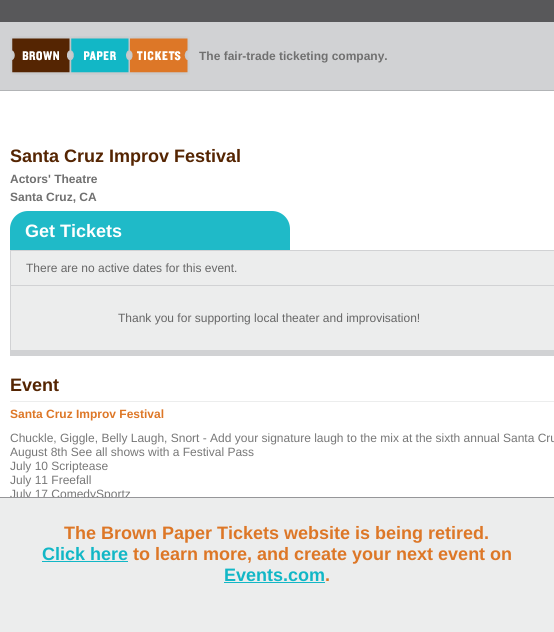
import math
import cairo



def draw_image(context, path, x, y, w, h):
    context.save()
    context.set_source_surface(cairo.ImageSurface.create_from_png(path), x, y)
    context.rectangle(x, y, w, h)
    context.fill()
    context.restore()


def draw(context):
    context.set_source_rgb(88 / 255, 88 / 255, 90 / 255)
    context.paint()
    context.set_source_rgb(209 / 255, 210 / 255, 212 / 255)
    context.rectangle(0, 22, 554, 68)
    context.fill()
    context.set_source_rgb(178 / 255, 180 / 255, 182 / 255)
    context.rectangle(0, 90, 554, 1)
    context.fill()
    draw_image(context, "images/1.png", 10, 36, 180, 39)
    context.set_source_rgb(1, 1, 1)
    context.rectangle(0, 91, 554, 406)
    context.fill()
    context.set_source_rgb(31 / 255, 186 / 255, 200 / 255)
    context.new_path()
    context.move_to(28, 211)
    context.line_to(272, 211)
    context.curve_to(282, 211, 290, 219, 290, 229)
    context.line_to(290, 250)
    context.line_to(10, 250)
    context.line_to(10, 229)
    context.curve_to(10, 219, 18, 211, 28, 211)
    context.close_path()
    context.fill()
    context.set_source_rgb(236 / 255, 237 / 255, 237 / 255)
    context.rectangle(11, 251, 543, 34)
    context.fill()
    context.set_source_rgb(209 / 255, 210 / 255, 212 / 255)
    context.set_fill_rule(cairo.FillRule.EVEN_ODD)
    context.new_path()
    context.move_to(10, 250)
    context.line_to(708, 250)
    context.curve_to(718, 250, 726, 258, 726, 268)
    context.line_to(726, 285)
    context.line_to(10, 285)
    context.close_path()
    context.move_to(11, 251)
    context.line_to(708, 251)
    context.curve_to(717, 251, 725, 259, 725, 268)
    context.line_to(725, 285)
    context.line_to(11, 285)
    context.close_path()
    context.fill()
    context.set_source_rgb(236 / 255, 237 / 255, 237 / 255)
    context.rectangle(11, 286, 543, 64)
    context.fill()
    context.set_source_rgb(209 / 255, 210 / 255, 212 / 255)
    context.rectangle(10, 285, 544, 1)
    context.fill()
    context.rectangle(10, 350, 544, 6)
    context.fill()
    context.rectangle(10, 285, 1, 71)
    context.fill()
    context.set_source_rgb(236 / 255, 237 / 255, 237 / 255)
    context.rectangle(10, 401, 544, 1)
    context.fill()
    context.select_font_face("Liberation Sans", cairo.FontSlant.NORMAL, cairo.FontWeight.BOLD)
    context.set_font_size(12)
    context.set_source_rgb(112 / 255, 112 / 255, 112 / 255)
    context.move_to(199, 60)
    context.show_text("The fair-trade ticketing company.")
    context.set_font_size(18)
    context.set_source_rgb(85 / 255, 37 / 255, 2 / 255)
    context.move_to(10, 162)
    context.show_text("Santa Cruz Improv Festival")
    context.set_font_size(12)
    context.set_source_rgb(112 / 255, 112 / 255, 112 / 255)
    context.move_to(10, 183)
    context.show_text("Actors' Theatre")
    context.move_to(10, 201)
    context.show_text("Santa Cruz, CA")
    context.set_font_size(18)
    context.set_source_rgb(1, 1, 1)
    context.move_to(25, 237)
    context.show_text("Get Tickets")
    context.select_font_face("Liberation Sans")
    context.set_font_size(12)
    context.set_source_rgb(102 / 255, 102 / 255, 102 / 255)
    context.move_to(26, 272)
    context.show_text("There are no active dates for this event.")
    context.move_to(118, 322)
    context.show_text("Thank you for supporting local theater and improvisation!")
    context.select_font_face("Liberation Sans", cairo.FontSlant.NORMAL, cairo.FontWeight.BOLD)
    context.set_font_size(18)
    context.set_source_rgb(85 / 255, 37 / 255, 2 / 255)
    context.move_to(10, 391)
    context.show_text("Event")
    context.set_font_size(12)
    context.set_source_rgb(221 / 255, 119 / 255, 39 / 255)
    context.move_to(10, 418)
    context.show_text("Santa Cruz Improv Festival")
    context.select_font_face("Liberation Sans")
    context.set_source_rgb(119 / 255, 119 / 255, 119 / 255)
    context.move_to(10, 442)
    context.show_text("Chuckle, Giggle, Belly Laugh, Snort - Add your signature laugh to the mix at the sixth annual Santa Cru")
    context.move_to(10, 456)
    context.show_text("August 8th See all shows with a Festival Pass")
    context.move_to(10, 470)
    context.show_text("July 10 Scriptease")
    context.move_to(10, 484)
    context.show_text("July 11 Freefall")
    context.move_to(10, 498)
    context.show_text("July 17 ComedySportz")
    context.set_source_rgb(236 / 255, 237 / 255, 237 / 255)
    context.rectangle(0, 498, 554, 134)
    context.fill()
    context.set_source_rgb(150 / 255, 150 / 255, 153 / 255)
    context.rectangle(0, 497, 554, 1)
    context.fill()
    context.select_font_face("Liberation Sans", cairo.FontSlant.NORMAL, cairo.FontWeight.BOLD)
    context.set_font_size(18)
    context.set_source_rgb(221 / 255, 119 / 255, 39 / 255)
    context.move_to(64, 539)
    context.show_text("The Brown Paper Tickets website is being retired.")
    context.set_source_rgb(18 / 255, 183 / 255, 198 / 255)
    context.move_to(42, 560)
    context.show_text("Click here")
    context.rectangle(42, 561, 86, 1)
    context.fill()
    context.set_source_rgb(221 / 255, 119 / 255, 39 / 255)
    context.move_to(133, 560)
    context.show_text("to learn more, and create your next event on")
    context.set_source_rgb(18 / 255, 183 / 255, 198 / 255)
    context.move_to(224, 581)
    context.show_text("Events.com")
    context.rectangle(224, 582, 101, 1)
    context.fill()
    context.set_source_rgb(221 / 255, 119 / 255, 39 / 255)
    context.move_to(325, 581)
    context.show_text(".")


surface = cairo.ImageSurface(cairo.Format.RGB24, 554, 632)
context = cairo.Context(surface)
options = cairo.FontOptions()
options.set_hint_metrics(cairo.HintMetrics.OFF)
options.set_hint_style(cairo.HintStyle.NONE)
context.set_font_options(options)
context.set_miter_limit(4)
draw(context)
surface.write_to_png("out.png")
